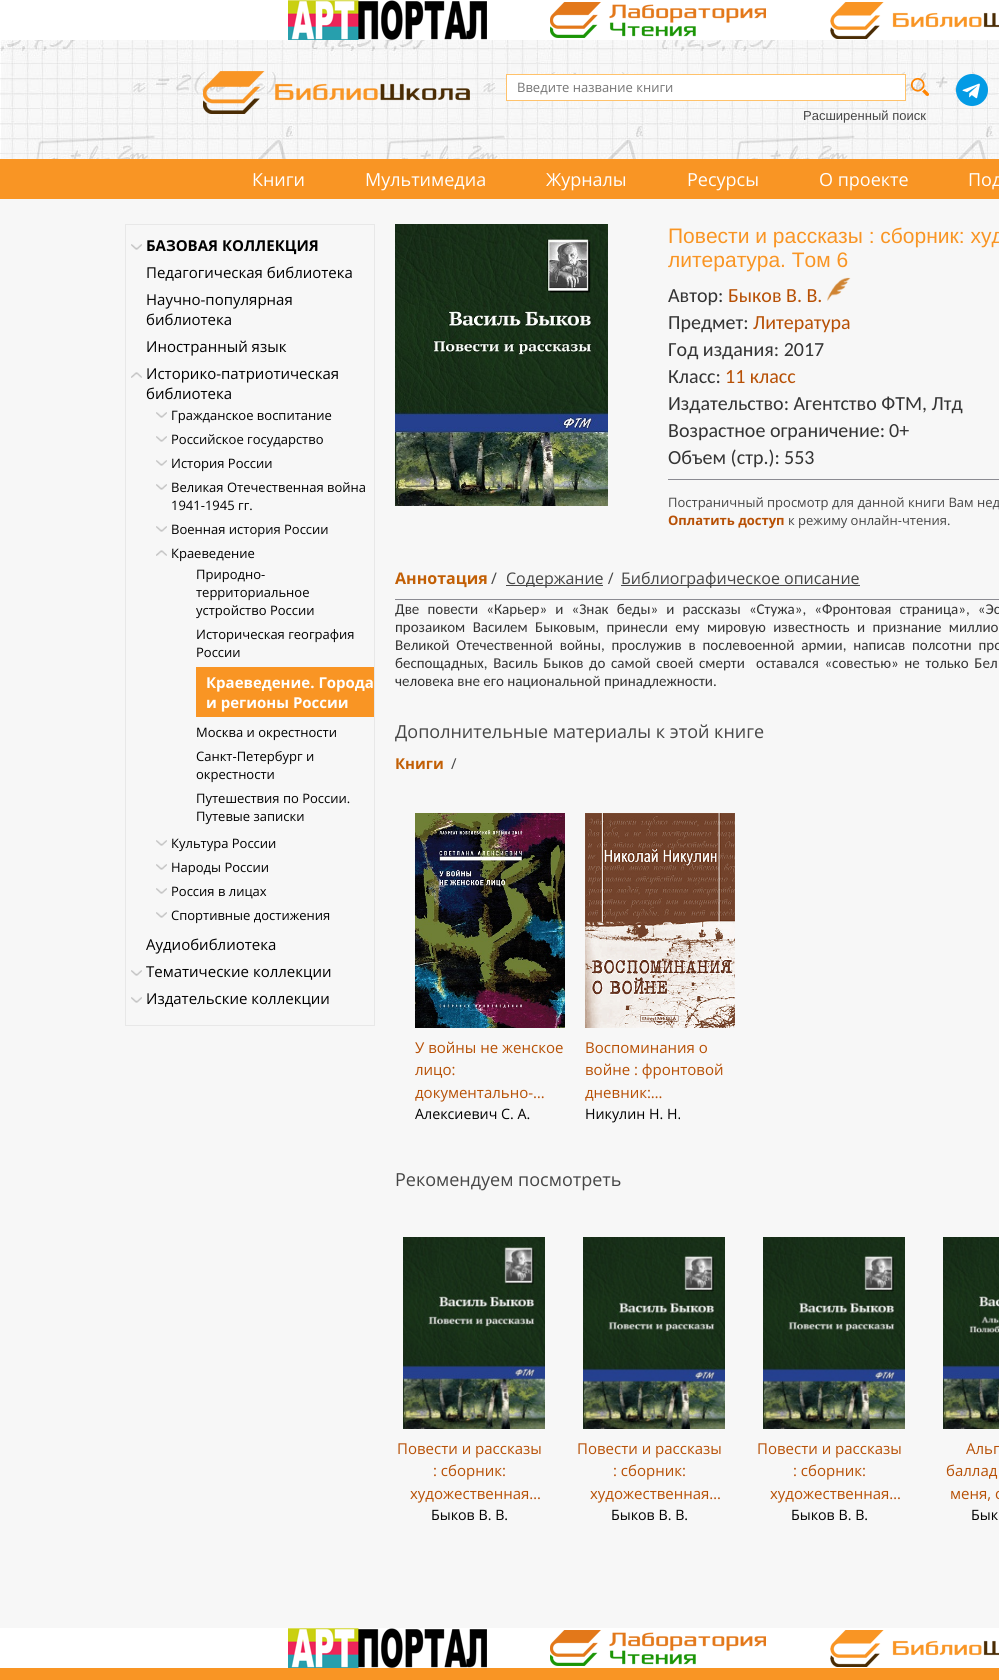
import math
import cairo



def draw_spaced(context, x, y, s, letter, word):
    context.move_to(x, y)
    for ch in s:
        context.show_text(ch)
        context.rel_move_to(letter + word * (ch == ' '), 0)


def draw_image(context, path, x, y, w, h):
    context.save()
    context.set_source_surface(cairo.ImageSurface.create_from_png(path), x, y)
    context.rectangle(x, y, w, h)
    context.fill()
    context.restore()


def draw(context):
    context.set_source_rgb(247 / 255, 247 / 255, 247 / 255)
    context.paint()
    context.set_source_rgb(1, 1, 1)
    context.rectangle(0, 0, 999, 40)
    context.fill()
    draw_image(context, "images/1.png", 288, 0, 199, 40)
    draw_image(context, "images/2.png", 550, 2, 216, 36)
    draw_image(context, "images/3.png", 830, 2, 169, 37)
    draw_image(context, "images/4.png", 0, 40, 999, 119)
    draw_image(context, "images/5.png", 203, 71, 267, 43)
    context.rectangle(506.5, 74.5, 399, 26)
    context.fill_preserve()
    context.set_source_rgb(1, 194 / 255, 107 / 255)
    context.set_line_width(1)
    context.stroke()
    draw_image(context, "images/6.png", 911, 78, 18, 18)
    draw_image(context, "images/7.png", 956, 74, 32, 32)
    context.set_source_rgb(249 / 255, 149 / 255, 36 / 255)
    context.rectangle(0, 159, 999, 40)
    context.fill()
    context.rectangle(125.5, 224.5, 249, 801)
    context.set_source_rgb(232 / 255, 232 / 255, 232 / 255)
    context.stroke()
    draw_image(context, "images/8.png", 131, 244, 11, 6)
    draw_image(context, "images/9.png", 131, 372, 11, 6)
    draw_image(context, "images/8.png", 156, 412, 11, 6)
    draw_image(context, "images/8.png", 156, 436, 11, 6)
    draw_image(context, "images/8.png", 156, 460, 11, 6)
    draw_image(context, "images/8.png", 156, 484, 11, 6)
    draw_image(context, "images/8.png", 156, 526, 11, 6)
    draw_image(context, "images/9.png", 156, 550, 11, 6)
    context.set_source_rgb(249 / 255, 149 / 255, 36 / 255)
    context.rectangle(196, 667, 178, 50)
    context.fill()
    draw_image(context, "images/8.png", 156, 840, 11, 6)
    draw_image(context, "images/8.png", 156, 864, 11, 6)
    draw_image(context, "images/8.png", 156, 888, 11, 6)
    draw_image(context, "images/8.png", 156, 912, 11, 6)
    draw_image(context, "images/8.png", 131, 970, 11, 6)
    draw_image(context, "images/8.png", 131, 997, 11, 6)
    draw_image(context, "images/10.png", 395, 224, 213, 282)
    draw_image(context, "images/11.png", 827, 277, 24, 24)
    context.set_source_rgb(139 / 255, 139 / 255, 146 / 255)
    context.rectangle(668, 479, 331, 1)
    context.fill()
    context.set_source_rgb(71 / 255, 71 / 255, 71 / 255)
    context.rectangle(506, 585, 97, 1)
    context.fill()
    context.rectangle(621, 585, 239, 1)
    context.fill()
    context.set_source_rgb(139 / 255, 139 / 255, 146 / 255)
    context.rectangle(395, 599, 604, 1)
    context.fill()
    draw_image(context, "images/12.png", 415, 813, 150, 215)
    draw_image(context, "images/13.png", 585, 813, 150, 215)
    draw_image(context, "images/14.png", 403, 1237, 142, 192)
    draw_image(context, "images/15.png", 583, 1237, 142, 192)
    draw_image(context, "images/15.png", 763, 1237, 142, 192)
    draw_image(context, "images/16.png", 943, 1237, 56, 192)
    context.set_source_rgb(1, 1, 1)
    context.rectangle(0, 1628, 999, 40)
    context.fill()
    draw_image(context, "images/1.png", 288, 1628, 199, 40)
    draw_image(context, "images/2.png", 550, 1630, 216, 36)
    draw_image(context, "images/3.png", 830, 1630, 169, 37)
    context.set_source_rgb(249 / 255, 149 / 255, 36 / 255)
    context.rectangle(0, 1668, 999, 12)
    context.fill()
    context.select_font_face("Open Sans")
    context.set_font_size(13)
    context.set_source_rgb(117 / 255, 117 / 255, 117 / 255)
    context.move_to(517, 92)
    context.show_text("Введите название книги")
    context.select_font_face("Liberation Sans")
    context.set_source_rgb(70 / 255, 70 / 255, 70 / 255)
    context.move_to(803, 120)
    context.show_text("Расширенный поиск")
    context.select_font_face("Open Sans")
    context.set_font_size(18)
    context.set_source_rgb(1, 1, 1)
    context.move_to(252, 186)
    context.show_text("Книги")
    context.move_to(365, 186)
    context.show_text("Мультимедиа")
    context.move_to(546, 186)
    context.show_text("Журналы")
    context.move_to(687, 186)
    context.show_text("Ресурсы")
    context.move_to(819, 186)
    context.show_text("О проекте")
    context.move_to(968, 186)
    context.show_text("Под")
    context.select_font_face("Open Sans", cairo.FontSlant.NORMAL, cairo.FontWeight.BOLD)
    context.set_font_size(15)
    context.set_source_rgb(0, 0, 0)
    context.move_to(146, 251)
    context.show_text("БАЗОВАЯ КОЛЛЕКЦИЯ")
    context.select_font_face("Open Sans")
    context.move_to(146, 278)
    context.show_text("Педагогическая библиотека")
    context.move_to(146, 305)
    context.show_text("Научно-популярная")
    context.move_to(146, 325)
    context.show_text("библиотека")
    context.move_to(146, 352)
    context.show_text("Иностранный язык")
    context.move_to(146, 379)
    context.show_text("Историко-патриотическая")
    context.move_to(146, 399)
    context.show_text("библиотека")
    context.set_font_size(13)
    context.move_to(171, 420)
    context.show_text("Гражданское воспитание")
    context.move_to(171, 444)
    context.show_text("Российское государство")
    context.move_to(171, 468)
    context.show_text("История России")
    context.move_to(171, 492)
    context.show_text("Великая Отечественная война")
    context.move_to(171, 510)
    context.show_text("1941-1945 гг.")
    context.move_to(171, 534)
    context.show_text("Военная история России")
    context.move_to(171, 558)
    context.show_text("Краеведение")
    context.move_to(196, 579)
    context.show_text("Природно-")
    context.move_to(196, 597)
    context.show_text("территориальное")
    context.move_to(196, 615)
    context.show_text("устройство России")
    context.move_to(196, 639)
    context.show_text("Историческая география")
    context.move_to(196, 657)
    context.show_text("России")
    context.select_font_face("Open Sans", cairo.FontSlant.NORMAL, cairo.FontWeight.BOLD)
    context.set_font_size(15)
    context.set_source_rgb(1, 1, 1)
    context.move_to(206, 688)
    context.show_text("Краеведение. Города")
    context.move_to(206, 708)
    context.show_text("и регионы России")
    context.select_font_face("Open Sans")
    context.set_font_size(13)
    context.set_source_rgb(0, 0, 0)
    context.move_to(196, 737)
    context.show_text("Москва и окрестности")
    context.move_to(196, 761)
    context.show_text("Санкт-Петербург и")
    context.move_to(196, 779)
    context.show_text("окрестности")
    context.move_to(196, 803)
    context.show_text("Путешествия по России.")
    context.move_to(196, 821)
    context.show_text("Путевые записки")
    context.move_to(171, 848)
    context.show_text("Культура России")
    context.move_to(171, 872)
    context.show_text("Народы России")
    context.move_to(171, 896)
    context.show_text("Россия в лицах")
    context.move_to(171, 920)
    context.show_text("Спортивные достижения")
    context.set_font_size(15)
    context.move_to(146, 950)
    context.show_text("Аудиобиблиотека")
    context.move_to(146, 977)
    context.show_text("Тематические коллекции")
    context.move_to(146, 1004)
    context.show_text("Издательские коллекции")
    context.select_font_face("Liberation Sans")
    context.set_font_size(21)
    context.set_source_rgb(249 / 255, 149 / 255, 36 / 255)
    context.move_to(668, 243)
    context.show_text("Повести и рассказы : сборник: худ")
    context.move_to(668, 267)
    context.show_text("литература. Том 6")
    context.select_font_face("Carlito")
    context.set_font_size(20)
    context.set_source_rgb(52 / 255, 52 / 255, 52 / 255)
    context.move_to(668, 302)
    context.show_text("Автор:")
    context.set_source_rgb(183 / 255, 80 / 255, 5 / 255)
    context.move_to(728, 302)
    context.show_text("Быков В. В.")
    context.set_source_rgb(52 / 255, 52 / 255, 52 / 255)
    context.move_to(668, 329)
    context.show_text("Предмет:")
    context.set_source_rgb(183 / 255, 80 / 255, 5 / 255)
    context.move_to(753, 329)
    context.show_text("Литература")
    context.set_source_rgb(52 / 255, 52 / 255, 52 / 255)
    context.move_to(668, 356)
    context.show_text("Год издания: 2017")
    context.move_to(668, 383)
    context.show_text("Класс:")
    context.set_source_rgb(183 / 255, 80 / 255, 5 / 255)
    context.move_to(725, 383)
    context.show_text("11 класс")
    context.set_source_rgb(52 / 255, 52 / 255, 52 / 255)
    context.move_to(668, 410)
    context.show_text("Издательство: Агентство ФТМ, Лтд")
    context.move_to(668, 437)
    context.show_text("Возрастное ограничение:")
    context.move_to(889, 437)
    context.show_text("0+")
    context.move_to(668, 464)
    context.show_text("Объем (стр.):")
    context.move_to(784, 464)
    context.show_text("553")
    context.select_font_face("Open Sans")
    context.set_font_size(13)
    context.set_source_rgb(70 / 255, 70 / 255, 70 / 255)
    context.move_to(668, 507)
    context.show_text("Постраничный просмотр для данной книги Вам нед")
    context.select_font_face("Open Sans", cairo.FontSlant.NORMAL, cairo.FontWeight.BOLD)
    context.set_source_rgb(183 / 255, 80 / 255, 5 / 255)
    context.move_to(668, 525)
    context.show_text("Оплатить доступ")
    context.select_font_face("Open Sans")
    context.set_source_rgb(70 / 255, 70 / 255, 70 / 255)
    context.move_to(788, 525)
    context.show_text("к режиму онлайн-чтения.")
    context.select_font_face("Open Sans", cairo.FontSlant.NORMAL, cairo.FontWeight.BOLD)
    context.set_font_size(16)
    context.set_source_rgb(194 / 255, 95 / 255, 5 / 255)
    context.move_to(395, 584)
    context.show_text("Аннотация")
    context.select_font_face("Open Sans")
    context.set_source_rgb(70 / 255, 70 / 255, 70 / 255)
    context.move_to(491, 584)
    context.show_text("/")
    context.move_to(506, 584)
    context.show_text("Содержание /")
    context.move_to(621, 584)
    context.show_text("Библиографическое описание")
    context.save()
    context.rectangle(395, 224, 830, 1354)
    context.clip()
    context.select_font_face("Carlito")
    context.set_font_size(15)
    context.set_source_rgb(52 / 255, 52 / 255, 52 / 255)
    draw_spaced(context, 395, 614, "Две повести «Карьер» и «Знак беды» и рассказы «Стужа», «Фронтовая страница», «Эс", 0, 4.75)
    context.restore()
    context.select_font_face("Carlito")
    context.set_font_size(15)
    context.set_source_rgb(52 / 255, 52 / 255, 52 / 255)
    draw_spaced(context, 395, 632, "прозаиком Василем Быковым, принесли ему мировую известность и признание миллио", 0, 4)
    draw_spaced(context, 395, 650, "Великой Отечественной войны, прослужив в послевоенной армии, написав полсотни про", 0, 3.5)
    draw_spaced(context, 395, 668, "беспощадных, Василь Быков до самой своей смерти  оставался «совестью» не только Бел", 0, 2.25)
    context.move_to(395, 686)
    context.show_text("человека вне его национальной принадлежности.")
    context.save()
    context.rectangle(395, 224, 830, 1354)
    context.clip()
    context.select_font_face("Open Sans")
    context.set_font_size(18)
    context.set_source_rgb(70 / 255, 70 / 255, 70 / 255)
    context.move_to(395, 738)
    context.show_text("Дополнительные материалы к этой книге")
    context.restore()
    context.select_font_face("Open Sans", cairo.FontSlant.NORMAL, cairo.FontWeight.BOLD)
    context.set_source_rgb(194 / 255, 95 / 255, 5 / 255)
    context.move_to(395, 769)
    context.show_text("Книги")
    context.select_font_face("Open Sans")
    context.set_source_rgb(70 / 255, 70 / 255, 70 / 255)
    context.move_to(451, 769)
    context.show_text("/")
    context.set_source_rgb(183 / 255, 80 / 255, 5 / 255)
    context.move_to(415, 1053)
    context.show_text("У войны не женское")
    context.move_to(415, 1075)
    context.show_text("лицо:")
    context.save()
    context.rectangle(415, 1036, 150, 67)
    context.clip()
    context.move_to(415, 1098)
    context.show_text("документально-…")
    context.restore()
    context.set_font_size(14.25)
    context.set_source_rgb(0, 0, 0)
    context.move_to(415, 1119)
    context.show_text("Алексиевич С. А.")
    context.set_font_size(15)
    context.set_source_rgb(183 / 255, 80 / 255, 5 / 255)
    context.move_to(585, 1053)
    context.show_text("Воспоминания о")
    context.move_to(585, 1075)
    context.show_text("войне : фронтовой")
    context.save()
    context.rectangle(585, 1036, 150, 67)
    context.clip()
    context.move_to(585, 1098)
    context.show_text("дневник:…")
    context.restore()
    context.set_font_size(14.25)
    context.set_source_rgb(0, 0, 0)
    context.move_to(585, 1119)
    context.show_text("Никулин Н. Н.")
    context.set_font_size(18)
    context.set_source_rgb(70 / 255, 70 / 255, 70 / 255)
    context.move_to(395, 1186)
    context.show_text("Рекомендуем посмотреть")
    context.set_font_size(15)
    context.set_source_rgb(183 / 255, 80 / 255, 5 / 255)
    context.move_to(397, 1454)
    context.show_text("Повести и рассказы")
    context.move_to(433, 1476)
    context.show_text(": сборник:")
    context.move_to(410, 1499)
    context.show_text("художественная…")
    context.set_font_size(14.25)
    context.set_source_rgb(0, 0, 0)
    context.move_to(431, 1520)
    context.show_text("Быков В. В.")
    context.set_font_size(15)
    context.set_source_rgb(183 / 255, 80 / 255, 5 / 255)
    context.move_to(577, 1454)
    context.show_text("Повести и рассказы")
    context.move_to(613, 1476)
    context.show_text(": сборник:")
    context.move_to(590, 1499)
    context.show_text("художественная…")
    context.set_font_size(14.25)
    context.set_source_rgb(0, 0, 0)
    context.move_to(611, 1520)
    context.show_text("Быков В. В.")
    context.set_font_size(15)
    context.set_source_rgb(183 / 255, 80 / 255, 5 / 255)
    context.move_to(757, 1454)
    context.show_text("Повести и рассказы")
    context.move_to(793, 1476)
    context.show_text(": сборник:")
    context.move_to(770, 1499)
    context.show_text("художественная…")
    context.set_font_size(14.25)
    context.set_source_rgb(0, 0, 0)
    context.move_to(791, 1520)
    context.show_text("Быков В. В.")
    context.set_font_size(15)
    context.set_source_rgb(183 / 255, 80 / 255, 5 / 255)
    context.move_to(966, 1454)
    context.show_text("Альп")
    context.move_to(946, 1476)
    context.show_text("баллад")
    context.move_to(950, 1499)
    context.show_text("меня, с")
    context.set_font_size(14.25)
    context.set_source_rgb(0, 0, 0)
    context.move_to(971, 1520)
    context.show_text("Бык")


surface = cairo.ImageSurface(cairo.Format.RGB24, 999, 1680)
context = cairo.Context(surface)
options = cairo.FontOptions()
options.set_hint_metrics(cairo.HintMetrics.OFF)
options.set_hint_style(cairo.HintStyle.NONE)
context.set_font_options(options)
context.set_miter_limit(4)
draw(context)
surface.write_to_png("out.png")
